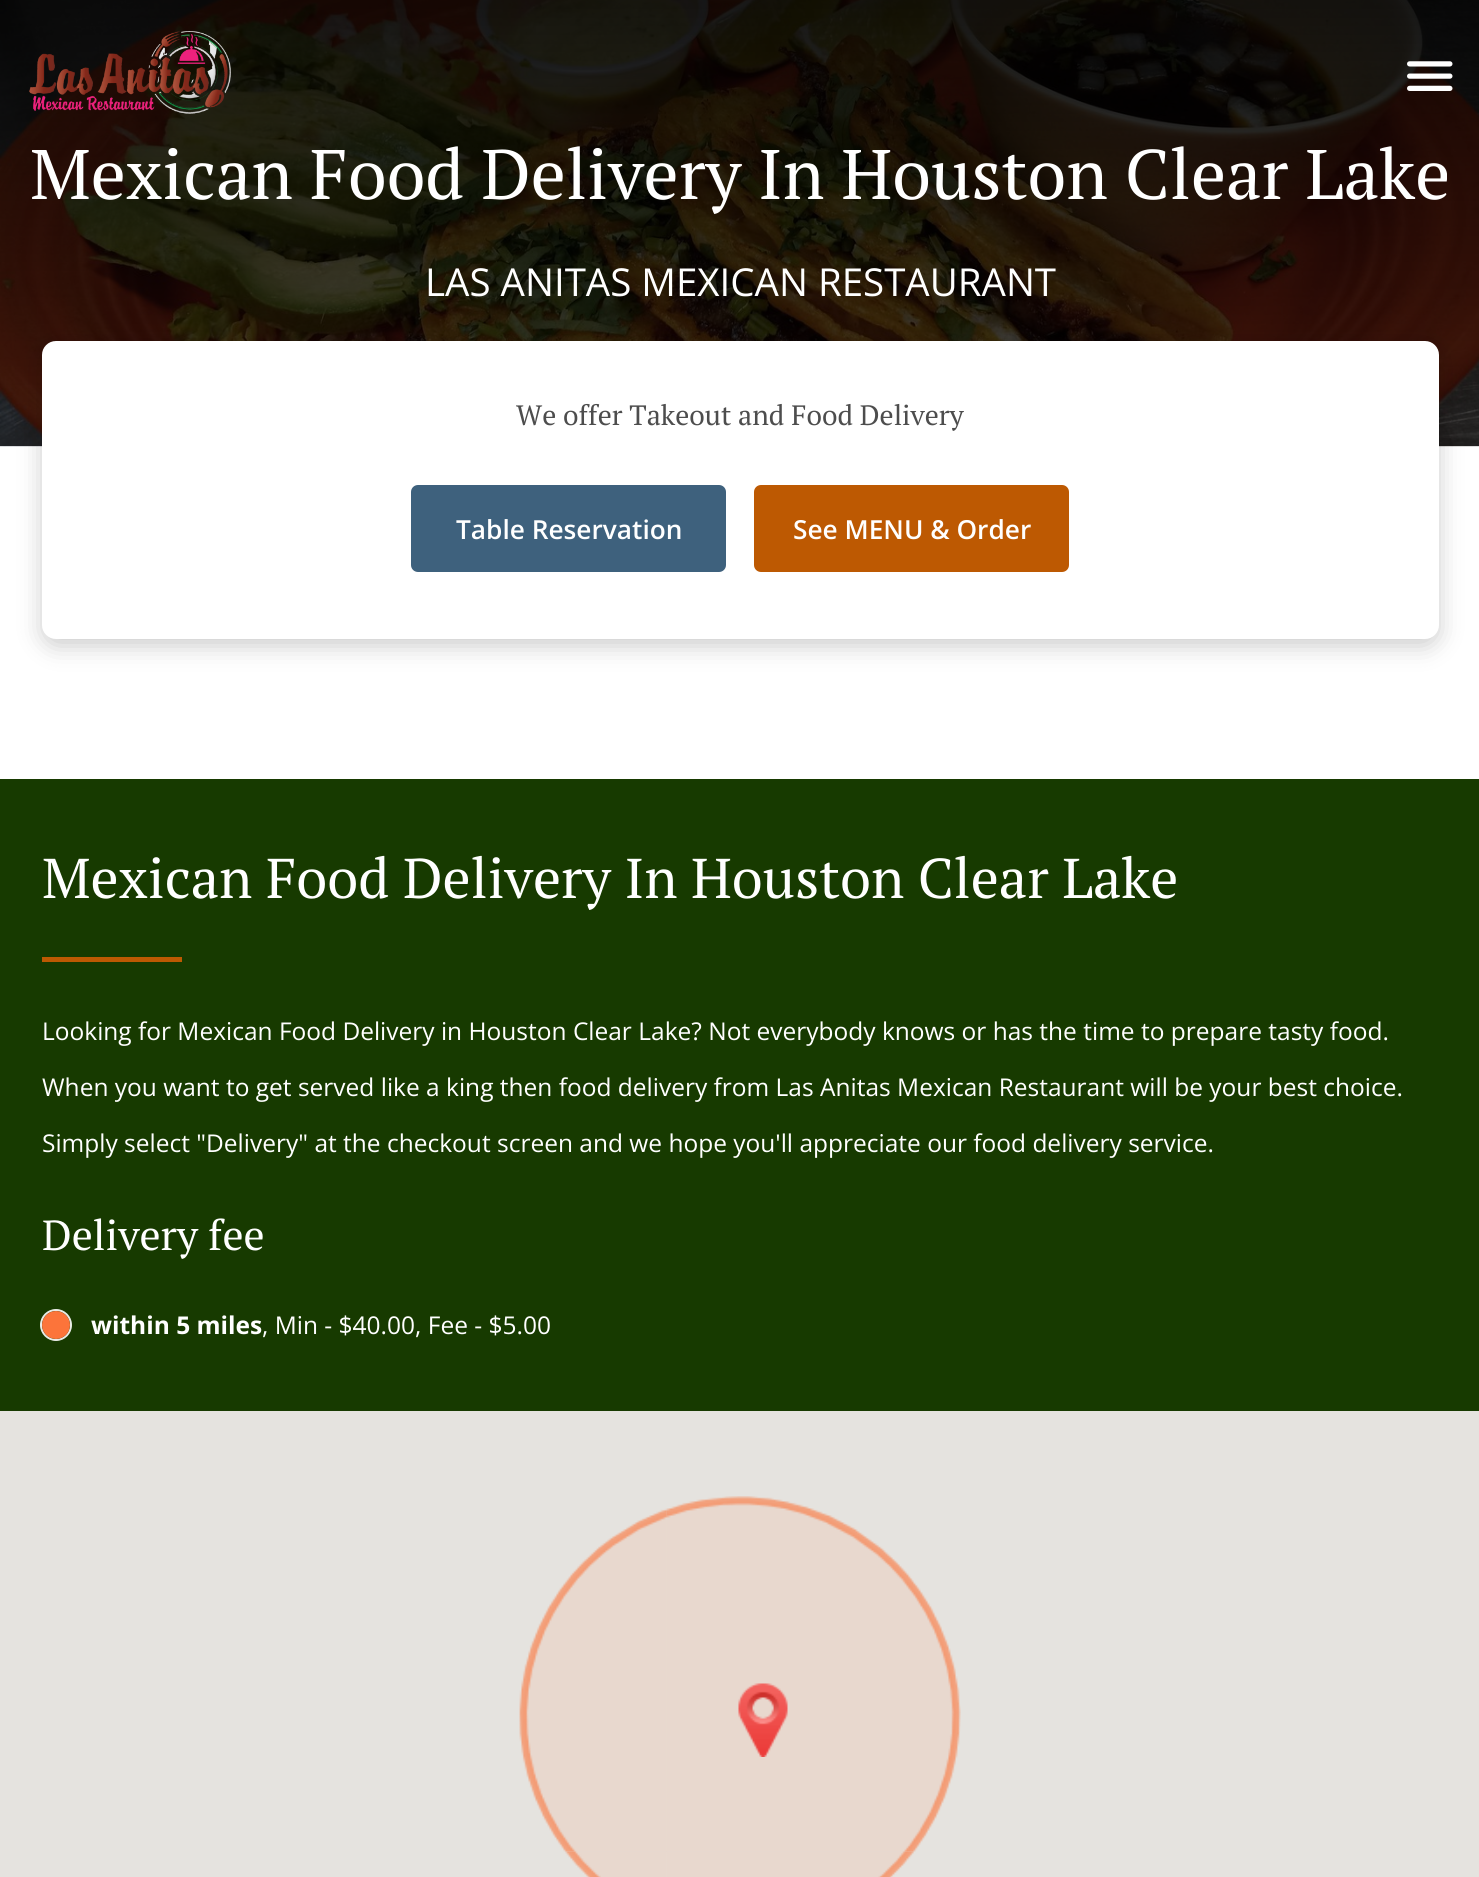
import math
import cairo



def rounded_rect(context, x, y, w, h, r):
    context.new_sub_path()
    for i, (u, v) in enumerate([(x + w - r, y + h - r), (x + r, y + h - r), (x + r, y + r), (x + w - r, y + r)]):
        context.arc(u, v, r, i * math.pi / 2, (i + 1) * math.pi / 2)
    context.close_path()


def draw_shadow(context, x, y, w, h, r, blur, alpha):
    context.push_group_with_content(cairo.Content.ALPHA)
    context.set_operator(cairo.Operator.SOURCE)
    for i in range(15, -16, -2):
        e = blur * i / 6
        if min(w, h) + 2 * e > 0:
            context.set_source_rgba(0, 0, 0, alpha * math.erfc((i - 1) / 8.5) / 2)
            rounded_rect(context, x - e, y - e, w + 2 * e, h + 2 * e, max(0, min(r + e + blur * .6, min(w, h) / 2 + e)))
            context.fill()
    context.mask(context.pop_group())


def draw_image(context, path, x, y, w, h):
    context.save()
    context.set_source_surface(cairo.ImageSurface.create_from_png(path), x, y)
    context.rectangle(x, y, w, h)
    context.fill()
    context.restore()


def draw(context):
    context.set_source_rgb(1, 1, 1)
    context.paint()
    draw_image(context, "images/3.png", 0, 0, 1479, 447)
    draw_image(context, "images/1.png", 29, 31, 202, 83)
    draw_image(context, "images/2.png", 1407, 61, 46, 30)
    context.set_source_rgb(0, 0, 0)
    draw_shadow(context, 42, 348, 1397, 298, 14, 12, 0.2)
    context.set_source_rgb(1, 1, 1)
    rounded_rect(context, 42, 341, 1397, 298, 14)
    context.fill()
    context.set_source_rgb(62 / 255, 97 / 255, 125 / 255)
    rounded_rect(context, 412, 486, 313, 85, 6)
    context.fill_preserve()
    context.stroke()
    context.set_source_rgb(189 / 255, 89 / 255, 2 / 255)
    rounded_rect(context, 755, 486, 313, 85, 6)
    context.fill_preserve()
    context.stroke()
    context.set_source_rgb(23 / 255, 58 / 255, 0)
    context.rectangle(0, 779, 1479, 632)
    context.fill()
    context.set_source_rgb(189 / 255, 89 / 255, 2 / 255)
    context.rectangle(42, 957, 140, 5)
    context.fill()
    context.arc(56, 1325, 15, 0, 2 * math.pi)
    context.set_source_rgb(232 / 255, 235 / 255, 230 / 255)
    context.stroke()
    context.set_source_rgb(252 / 255, 116 / 255, 58 / 255)
    context.arc(56, 1325, 14, 0, 2 * math.pi)
    context.fill()
    context.set_source_rgb(229 / 255, 227 / 255, 223 / 255)
    context.rectangle(0, 1411, 1479, 466)
    context.fill()
    draw_image(context, "images/7.png", 666, 1851, 248, 26)
    draw_image(context, "images/6.png", 565, 1851, 102, 26)
    draw_image(context, "images/4.png", 519, 1508, 148, 344)
    draw_image(context, "images/5.png", 666, 1496, 295, 356)
    draw_image(context, "images/8.png", 738, 1683, 50, 74)
    context.select_font_face("PT Serif")
    context.set_font_size(70)
    context.set_source_rgb(1, 1, 1)
    context.move_to(30, 199)
    context.show_text("Mexican Food Delivery In Houston Clear Lake")
    context.select_font_face("Open Sans")
    context.set_font_size(38.5)
    context.move_to(425, 296)
    context.show_text("LAS ANITAS MEXICAN RESTAURANT")
    context.select_font_face("PT Serif")
    context.set_font_size(28)
    context.set_source_rgb(77 / 255, 77 / 255, 77 / 255)
    context.move_to(516, 425)
    context.show_text("We offer Takeout and Food Delivery")
    context.select_font_face("Open Sans SemiBold")
    context.set_font_size(26.25)
    context.set_source_rgb(1, 1, 1)
    context.move_to(456, 539)
    context.show_text("Table Reservation")
    context.move_to(793, 539)
    context.show_text("See MENU & Order")
    context.select_font_face("PT Serif")
    context.set_font_size(56)
    context.move_to(42, 898)
    context.show_text("Mexican Food Delivery In Houston Clear Lake")
    context.select_font_face("Open Sans")
    context.set_font_size(24.5)
    context.move_to(42, 1040)
    context.show_text("Looking for Mexican Food Delivery in Houston Clear Lake? Not everybody knows or has the time to prepare tasty food.")
    context.move_to(42, 1096)
    context.show_text("When you want to get served like a king then food delivery from Las Anitas Mexican Restaurant will be your best choice.")
    context.move_to(42, 1152)
    context.show_text("Simply select \"Delivery\" at the checkout screen and we hope you'll appreciate our food delivery service.")
    context.select_font_face("PT Serif")
    context.set_font_size(42)
    context.move_to(42, 1250)
    context.show_text("Delivery fee")
    context.select_font_face("Open Sans", cairo.FontSlant.NORMAL, cairo.FontWeight.BOLD)
    context.set_font_size(24.5)
    context.move_to(91, 1334)
    context.show_text("within 5 miles")
    context.select_font_face("Open Sans")
    context.move_to(262, 1334)
    context.show_text(", Min - $40.00, Fee - $5.00")


surface = cairo.ImageSurface(cairo.Format.RGB24, 1479, 1877)
context = cairo.Context(surface)
options = cairo.FontOptions()
options.set_hint_metrics(cairo.HintMetrics.OFF)
options.set_hint_style(cairo.HintStyle.NONE)
context.set_font_options(options)
context.set_miter_limit(4)
draw(context)
surface.write_to_png("out.png")
